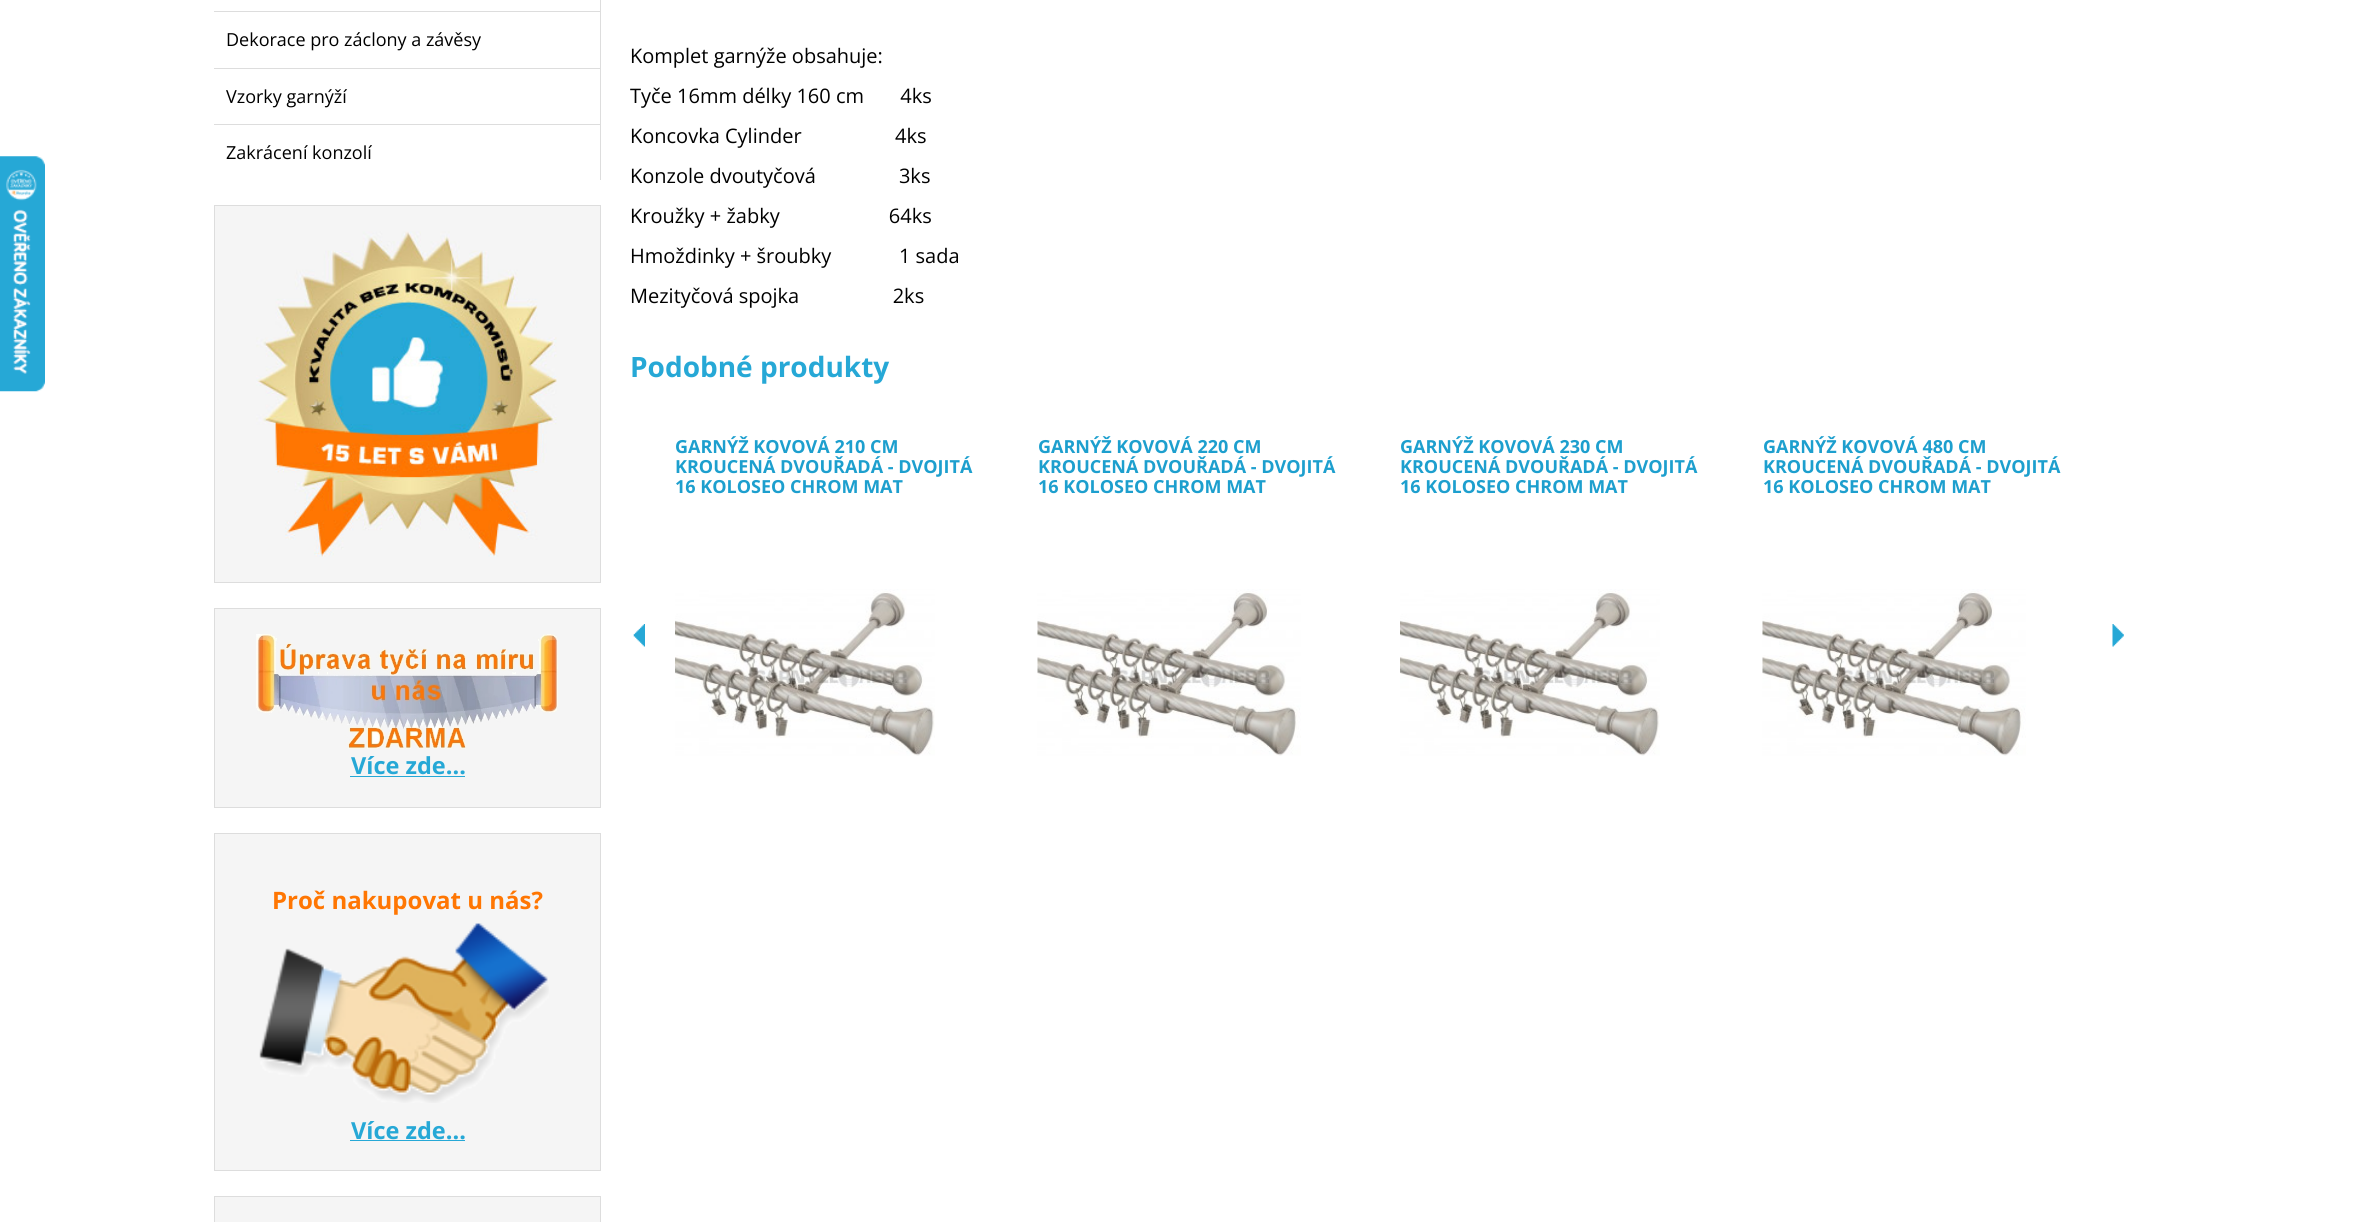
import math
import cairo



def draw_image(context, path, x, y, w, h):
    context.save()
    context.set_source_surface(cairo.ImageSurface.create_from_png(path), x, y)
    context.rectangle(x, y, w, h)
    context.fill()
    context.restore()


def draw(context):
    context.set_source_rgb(1, 1, 1)
    context.paint()
    draw_image(context, "images/1.png", 0, 156, 45, 236)
    context.set_source_rgb(221 / 255, 221 / 255, 221 / 255)
    context.rectangle(600, 0, 1, 180)
    context.fill()
    context.rectangle(214, 11, 386, 1)
    context.fill()
    context.rectangle(214, 68, 386, 1)
    context.fill()
    context.rectangle(214, 124, 386, 1)
    context.fill()
    context.set_source_rgb(245 / 255, 245 / 255, 245 / 255)
    context.rectangle(214.5, 205.5, 386, 377)
    context.fill_preserve()
    context.set_source_rgb(221 / 255, 221 / 255, 221 / 255)
    context.set_line_width(1)
    context.stroke()
    draw_image(context, "images/2.png", 256, 231, 301, 326)
    context.set_source_rgb(245 / 255, 245 / 255, 245 / 255)
    context.rectangle(214.5, 608.5, 386, 199)
    context.fill_preserve()
    context.set_source_rgb(221 / 255, 221 / 255, 221 / 255)
    context.stroke()
    draw_image(context, "images/3.png", 256, 634, 302, 115)
    context.set_source_rgb(38 / 255, 168 / 255, 214 / 255)
    context.rectangle(350, 776, 115, 1)
    context.fill()
    context.set_source_rgb(245 / 255, 245 / 255, 245 / 255)
    context.rectangle(214.5, 833.5, 386, 337)
    context.fill_preserve()
    context.set_source_rgb(221 / 255, 221 / 255, 221 / 255)
    context.stroke()
    draw_image(context, "images/4.png", 259, 923, 290, 180)
    context.set_source_rgb(38 / 255, 168 / 255, 214 / 255)
    context.rectangle(350, 1140, 115, 1)
    context.fill()
    context.set_source_rgb(245 / 255, 245 / 255, 245 / 255)
    context.rectangle(214.5, 1196.5, 386, 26)
    context.fill_preserve()
    context.set_source_rgb(221 / 255, 221 / 255, 221 / 255)
    context.stroke()
    draw_image(context, "images/5.png", 675, 589, 260, 167)
    draw_image(context, "images/6.png", 1037, 589, 264, 167)
    draw_image(context, "images/5.png", 1400, 589, 260, 167)
    draw_image(context, "images/6.png", 1762, 589, 264, 167)
    draw_image(context, "images/7.png", 633, 624, 12, 23)
    draw_image(context, "images/8.png", 2112, 624, 12, 23)
    context.select_font_face("Open Sans")
    context.set_font_size(18)
    context.set_source_rgb(0, 0, 0)
    context.move_to(226, 46)
    context.show_text("Dekorace pro záclony a závěsy")
    context.move_to(226, 103)
    context.show_text("Vzorky garnýží")
    context.move_to(226, 159)
    context.show_text("Zakrácení konzolí")
    context.select_font_face("Open Sans", cairo.FontSlant.NORMAL, cairo.FontWeight.BOLD)
    context.set_font_size(23.5)
    context.set_source_rgb(38 / 255, 168 / 255, 214 / 255)
    context.move_to(351, 774)
    context.show_text("Více zde...")
    context.set_font_size(24)
    context.set_source_rgb(1, 118 / 255, 2 / 255)
    context.move_to(272, 909)
    context.show_text("Proč nakupovat u nás?")
    context.set_font_size(23.5)
    context.set_source_rgb(38 / 255, 168 / 255, 214 / 255)
    context.move_to(351, 1139)
    context.show_text("Více zde...")
    context.select_font_face("Open Sans")
    context.set_font_size(20)
    context.set_source_rgb(0, 0, 0)
    context.move_to(630, 63)
    context.show_text("Komplet garnýže obsahuje:")
    context.move_to(630, 103)
    context.show_text("Tyče 16mm délky 160 cm       4ks")
    context.move_to(630, 143)
    context.show_text("Koncovka Cylinder                  4ks")
    context.move_to(630, 183)
    context.show_text("Konzole dvoutyčová                3ks")
    context.move_to(630, 223)
    context.show_text("Kroužky + žabky                     64ks")
    context.move_to(630, 263)
    context.show_text("Hmoždinky + šroubky             1 sada")
    context.move_to(630, 303)
    context.show_text("Mezityčová spojka                  2ks")
    context.select_font_face("Open Sans", cairo.FontSlant.NORMAL, cairo.FontWeight.BOLD)
    context.set_font_size(28)
    context.set_source_rgb(38 / 255, 168 / 255, 214 / 255)
    context.move_to(630, 377)
    context.show_text("Podobné produkty")
    context.set_font_size(18)
    context.set_source_rgb(29 / 255, 159 / 255, 206 / 255)
    context.move_to(675, 453)
    context.show_text("GARNÝŽ KOVOVÁ 210 CM")
    context.move_to(675, 473)
    context.show_text("KROUCENÁ DVOUŘADÁ - DVOJITÁ")
    context.move_to(675, 493)
    context.show_text("16 KOLOSEO CHROM MAT")
    context.move_to(1038, 453)
    context.show_text("GARNÝŽ KOVOVÁ 220 CM")
    context.move_to(1038, 473)
    context.show_text("KROUCENÁ DVOUŘADÁ - DVOJITÁ")
    context.move_to(1038, 493)
    context.show_text("16 KOLOSEO CHROM MAT")
    context.move_to(1400, 453)
    context.show_text("GARNÝŽ KOVOVÁ 230 CM")
    context.move_to(1400, 473)
    context.show_text("KROUCENÁ DVOUŘADÁ - DVOJITÁ")
    context.move_to(1400, 493)
    context.show_text("16 KOLOSEO CHROM MAT")
    context.move_to(1763, 453)
    context.show_text("GARNÝŽ KOVOVÁ 480 CM")
    context.move_to(1763, 473)
    context.show_text("KROUCENÁ DVOUŘADÁ - DVOJITÁ")
    context.move_to(1763, 493)
    context.show_text("16 KOLOSEO CHROM MAT")


surface = cairo.ImageSurface(cairo.Format.RGB24, 2365, 1222)
context = cairo.Context(surface)
options = cairo.FontOptions()
options.set_hint_metrics(cairo.HintMetrics.OFF)
options.set_hint_style(cairo.HintStyle.NONE)
context.set_font_options(options)
context.set_miter_limit(4)
draw(context)
surface.write_to_png("out.png")
